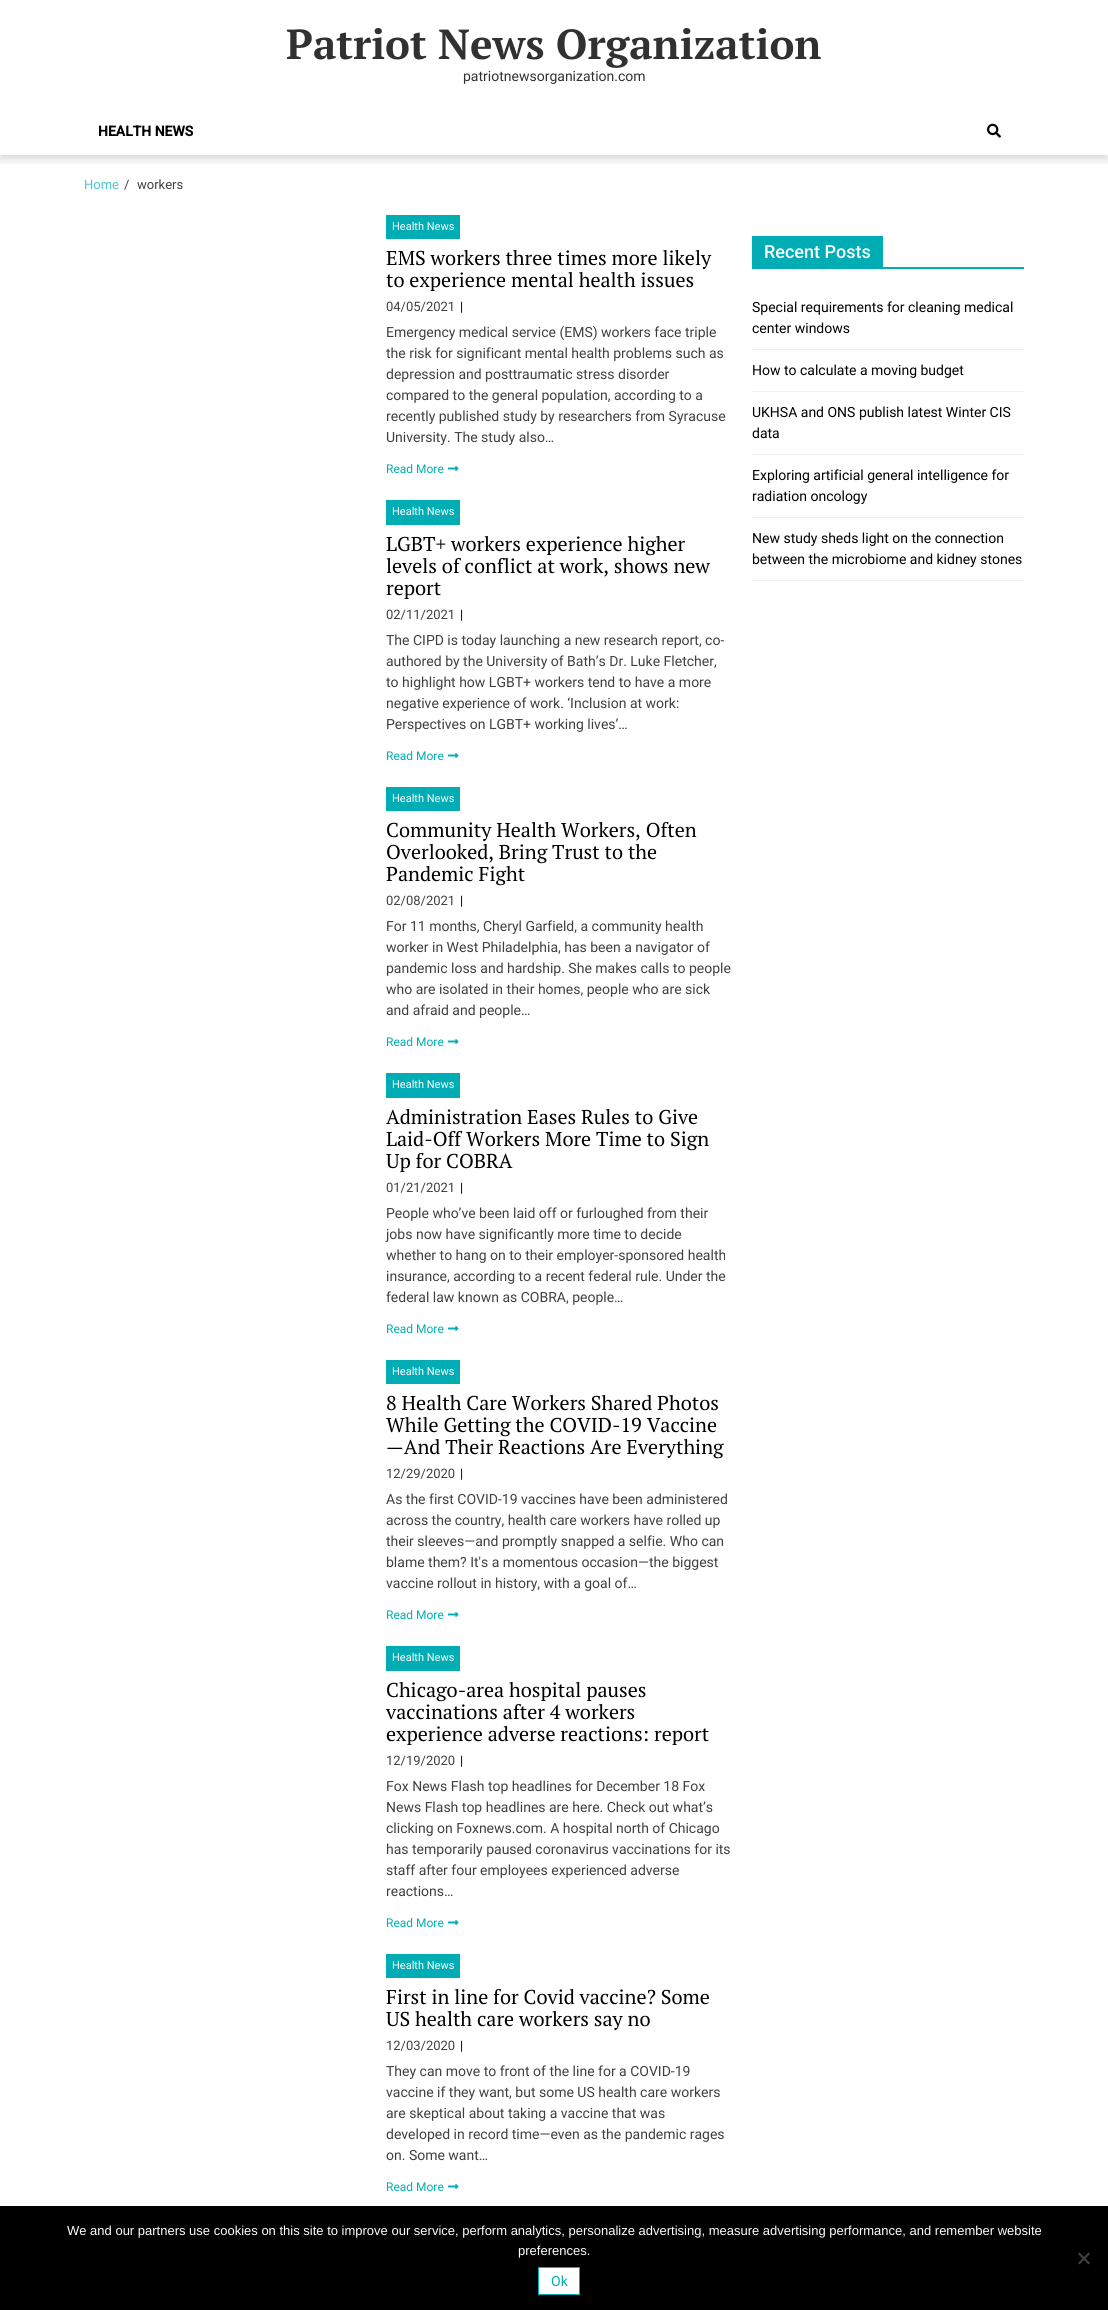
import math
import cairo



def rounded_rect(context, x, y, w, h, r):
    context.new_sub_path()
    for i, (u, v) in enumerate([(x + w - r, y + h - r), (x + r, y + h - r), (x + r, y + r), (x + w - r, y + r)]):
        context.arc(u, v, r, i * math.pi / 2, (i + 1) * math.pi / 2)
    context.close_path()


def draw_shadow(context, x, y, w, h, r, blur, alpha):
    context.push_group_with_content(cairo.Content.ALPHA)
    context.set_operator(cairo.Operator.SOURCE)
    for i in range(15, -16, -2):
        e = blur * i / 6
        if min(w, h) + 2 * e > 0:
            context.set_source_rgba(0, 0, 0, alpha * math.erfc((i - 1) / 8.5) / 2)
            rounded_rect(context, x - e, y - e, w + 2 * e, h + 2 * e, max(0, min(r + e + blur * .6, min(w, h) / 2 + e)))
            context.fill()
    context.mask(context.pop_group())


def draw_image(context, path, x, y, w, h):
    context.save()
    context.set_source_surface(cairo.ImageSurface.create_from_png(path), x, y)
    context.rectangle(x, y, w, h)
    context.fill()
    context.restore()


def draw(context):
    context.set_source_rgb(1, 1, 1)
    context.paint()
    context.save()
    context.rectangle(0, 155, 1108, 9)
    context.clip()
    context.set_source_rgb(0, 0, 0)
    draw_shadow(context, 0, 112, 1108, 48, 0, 4, 0.14)
    context.restore()
    draw_image(context, "images/1.png", 987, 123, 14, 15)
    context.set_source_rgb(0, 173 / 255, 181 / 255)
    context.rectangle(386, 215, 74, 24)
    context.fill()
    draw_image(context, "images/2.png", 448, 466, 11, 5)
    context.rectangle(386, 500, 74, 25)
    context.fill()
    draw_image(context, "images/2.png", 448, 753, 11, 5)
    context.rectangle(386, 787, 74, 24)
    context.fill()
    draw_image(context, "images/2.png", 448, 1039, 11, 5)
    context.rectangle(386, 1073, 74, 25)
    context.fill()
    draw_image(context, "images/2.png", 448, 1326, 11, 5)
    context.rectangle(386, 1360, 74, 24)
    context.fill()
    draw_image(context, "images/2.png", 448, 1612, 11, 5)
    context.rectangle(386, 1646, 74, 25)
    context.fill()
    draw_image(context, "images/2.png", 448, 1920, 11, 5)
    context.rectangle(386, 1954, 74, 24)
    context.fill()
    draw_image(context, "images/2.png", 448, 2184, 11, 5)
    context.rectangle(752, 236, 131, 31)
    context.fill()
    context.rectangle(752, 267, 272, 2)
    context.fill()
    context.set_source_rgb(240 / 255, 240 / 255, 240 / 255)
    context.rectangle(752, 349, 272, 1)
    context.fill()
    context.rectangle(752, 391, 272, 1)
    context.fill()
    context.rectangle(752, 454, 272, 1)
    context.fill()
    context.rectangle(752, 517, 272, 1)
    context.fill()
    context.rectangle(752, 580, 272, 1)
    context.fill()
    context.set_source_rgb(0, 0, 0)
    context.rectangle(0, 2206, 1108, 104)
    context.fill()
    context.set_source_rgb(64 / 255, 64 / 255, 64 / 255)
    context.new_path()
    context.move_to(1088.5, 2252.5)
    context.line_to(1090, 2254)
    context.line_to(1079.5, 2264.5)
    context.line_to(1078, 2263)
    context.close_path()
    context.fill()
    context.new_path()
    context.move_to(1078, 2254)
    context.line_to(1079.5, 2252.5)
    context.line_to(1090, 2263)
    context.line_to(1088.5, 2264.5)
    context.close_path()
    context.fill()
    context.set_source_rgb(1, 1, 1)
    context.rectangle(538.5, 2267.5, 41, 27)
    context.fill_preserve()
    context.set_source_rgb(0, 173 / 255, 181 / 255)
    context.set_line_width(1)
    context.stroke()
    context.select_font_face("PT Serif", cairo.FontSlant.NORMAL, cairo.FontWeight.BOLD)
    context.set_font_size(42)
    context.set_source_rgb(49 / 255, 49 / 255, 49 / 255)
    context.move_to(286, 59)
    context.show_text("Patriot News Organization")
    context.select_font_face("Roboto")
    context.set_font_size(14)
    context.move_to(463, 81)
    context.show_text("patriotnewsorganization.com")
    context.select_font_face("Roboto", cairo.FontSlant.NORMAL, cairo.FontWeight.BOLD)
    context.set_source_rgb(0, 0, 0)
    context.move_to(98, 136)
    context.show_text("HEALTH NEWS")
    context.select_font_face("Roboto")
    context.set_font_size(13)
    context.set_source_rgb(77 / 255, 198 / 255, 203 / 255)
    context.move_to(84, 189)
    context.show_text("Home")
    context.set_source_rgb(57 / 255, 62 / 255, 70 / 255)
    context.move_to(124, 189)
    context.show_text("/")
    context.set_source_rgb(64 / 255, 64 / 255, 64 / 255)
    context.move_to(137, 189)
    context.show_text("workers")
    context.set_font_size(11)
    context.set_source_rgb(1, 1, 1)
    context.move_to(392, 230)
    context.show_text("Health News")
    context.select_font_face("PT Serif")
    context.set_font_size(20)
    context.set_source_rgb(0, 0, 0)
    context.move_to(386, 265)
    context.show_text("EMS workers three times more likely")
    context.move_to(386, 287)
    context.show_text("to experience mental health issues")
    context.select_font_face("Roboto")
    context.set_font_size(13)
    context.set_source_rgb(64 / 255, 64 / 255, 64 / 255)
    context.move_to(386, 311)
    context.show_text("04/05/2021")
    context.set_source_rgb(0, 0, 0)
    context.move_to(460, 311)
    context.show_text("|")
    context.set_font_size(14)
    context.set_source_rgb(64 / 255, 64 / 255, 64 / 255)
    context.move_to(386, 337)
    context.show_text("Emergency medical service (EMS) workers face triple")
    context.move_to(386, 358)
    context.show_text("the risk for significant mental health problems such as")
    context.move_to(386, 379)
    context.show_text("depression and posttraumatic stress disorder")
    context.move_to(386, 400)
    context.show_text("compared to the general population, according to a")
    context.move_to(386, 421)
    context.show_text("recently published study by researchers from Syracuse")
    context.move_to(386, 442)
    context.show_text("University. The study also…")
    context.set_font_size(12)
    context.set_source_rgb(0, 173 / 255, 181 / 255)
    context.move_to(386, 473)
    context.show_text("Read More")
    context.set_font_size(11)
    context.set_source_rgb(1, 1, 1)
    context.move_to(392, 515)
    context.show_text("Health News")
    context.select_font_face("PT Serif")
    context.set_font_size(20)
    context.set_source_rgb(0, 0, 0)
    context.move_to(386, 551)
    context.show_text("LGBT+ workers experience higher")
    context.move_to(386, 573)
    context.show_text("levels of conflict at work, shows new")
    context.move_to(386, 595)
    context.show_text("report")
    context.select_font_face("Roboto")
    context.set_font_size(13)
    context.set_source_rgb(64 / 255, 64 / 255, 64 / 255)
    context.move_to(386, 619)
    context.show_text("02/11/2021")
    context.set_source_rgb(0, 0, 0)
    context.move_to(460, 619)
    context.show_text("|")
    context.set_font_size(14)
    context.set_source_rgb(64 / 255, 64 / 255, 64 / 255)
    context.move_to(386, 645)
    context.show_text("The CIPD is today launching a new research report, co-")
    context.move_to(386, 666)
    context.show_text("authored by the University of Bath’s Dr. Luke Fletcher,")
    context.move_to(386, 687)
    context.show_text("to highlight how LGBT+ workers tend to have a more")
    context.move_to(386, 708)
    context.show_text("negative experience of work. ‘Inclusion at work:")
    context.move_to(386, 729)
    context.show_text("Perspectives on LGBT+ working lives’…")
    context.set_font_size(12)
    context.set_source_rgb(0, 173 / 255, 181 / 255)
    context.move_to(386, 760)
    context.show_text("Read More")
    context.set_font_size(11)
    context.set_source_rgb(1, 1, 1)
    context.move_to(392, 802)
    context.show_text("Health News")
    context.select_font_face("PT Serif")
    context.set_font_size(20)
    context.set_source_rgb(0, 0, 0)
    context.move_to(386, 837)
    context.show_text("Community Health Workers, Often")
    context.move_to(386, 859)
    context.show_text("Overlooked, Bring Trust to the")
    context.move_to(386, 881)
    context.show_text("Pandemic Fight")
    context.select_font_face("Roboto")
    context.set_font_size(13)
    context.set_source_rgb(64 / 255, 64 / 255, 64 / 255)
    context.move_to(386, 905)
    context.show_text("02/08/2021")
    context.set_source_rgb(0, 0, 0)
    context.move_to(460, 905)
    context.show_text("|")
    context.set_font_size(14)
    context.set_source_rgb(64 / 255, 64 / 255, 64 / 255)
    context.move_to(386, 931)
    context.show_text("For 11 months, Cheryl Garfield, a community health")
    context.move_to(386, 952)
    context.show_text("worker in West Philadelphia, has been a navigator of")
    context.move_to(386, 973)
    context.show_text("pandemic loss and hardship. She makes calls to people")
    context.move_to(386, 994)
    context.show_text("who are isolated in their homes, people who are sick")
    context.move_to(386, 1015)
    context.show_text("and afraid and people…")
    context.set_font_size(12)
    context.set_source_rgb(0, 173 / 255, 181 / 255)
    context.move_to(386, 1046)
    context.show_text("Read More")
    context.set_font_size(11)
    context.set_source_rgb(1, 1, 1)
    context.move_to(392, 1088)
    context.show_text("Health News")
    context.select_font_face("PT Serif")
    context.set_font_size(20)
    context.set_source_rgb(0, 0, 0)
    context.move_to(386, 1124)
    context.show_text("Administration Eases Rules to Give")
    context.move_to(386, 1146)
    context.show_text("Laid-Off Workers More Time to Sign")
    context.move_to(386, 1168)
    context.show_text("Up for COBRA")
    context.select_font_face("Roboto")
    context.set_font_size(13)
    context.set_source_rgb(64 / 255, 64 / 255, 64 / 255)
    context.move_to(386, 1192)
    context.show_text("01/21/2021")
    context.set_source_rgb(0, 0, 0)
    context.move_to(460, 1192)
    context.show_text("|")
    context.set_font_size(14)
    context.set_source_rgb(64 / 255, 64 / 255, 64 / 255)
    context.move_to(386, 1218)
    context.show_text("People who’ve been laid off or furloughed from their")
    context.move_to(386, 1239)
    context.show_text("jobs now have significantly more time to decide")
    context.move_to(386, 1260)
    context.show_text("whether to hang on to their employer-sponsored health")
    context.move_to(386, 1281)
    context.show_text("insurance, according to a recent federal rule. Under the")
    context.move_to(386, 1302)
    context.show_text("federal law known as COBRA, people…")
    context.set_font_size(12)
    context.set_source_rgb(0, 173 / 255, 181 / 255)
    context.move_to(386, 1333)
    context.show_text("Read More")
    context.set_font_size(11)
    context.set_source_rgb(1, 1, 1)
    context.move_to(392, 1375)
    context.show_text("Health News")
    context.select_font_face("PT Serif")
    context.set_font_size(20)
    context.set_source_rgb(0, 0, 0)
    context.move_to(386, 1410)
    context.show_text("8 Health Care Workers Shared Photos")
    context.move_to(386, 1432)
    context.show_text("While Getting the COVID-19 Vaccine")
    context.move_to(386, 1454)
    context.show_text("—And Their Reactions Are Everything")
    context.select_font_face("Roboto")
    context.set_font_size(13)
    context.set_source_rgb(64 / 255, 64 / 255, 64 / 255)
    context.move_to(386, 1478)
    context.show_text("12/29/2020")
    context.set_source_rgb(0, 0, 0)
    context.move_to(460, 1478)
    context.show_text("|")
    context.set_font_size(14)
    context.set_source_rgb(64 / 255, 64 / 255, 64 / 255)
    context.move_to(386, 1504)
    context.show_text("As the first COVID-19 vaccines have been administered")
    context.move_to(386, 1525)
    context.show_text("across the country, health care workers have rolled up")
    context.move_to(386, 1546)
    context.show_text("their sleeves—and promptly snapped a selfie. Who can")
    context.move_to(386, 1567)
    context.show_text("blame them? It's a momentous occasion—the biggest")
    context.move_to(386, 1588)
    context.show_text("vaccine rollout in history, with a goal of…")
    context.set_font_size(12)
    context.set_source_rgb(0, 173 / 255, 181 / 255)
    context.move_to(386, 1619)
    context.show_text("Read More")
    context.set_font_size(11)
    context.set_source_rgb(1, 1, 1)
    context.move_to(392, 1661)
    context.show_text("Health News")
    context.select_font_face("PT Serif")
    context.set_font_size(20)
    context.set_source_rgb(0, 0, 0)
    context.move_to(386, 1697)
    context.show_text("Chicago-area hospital pauses")
    context.move_to(386, 1719)
    context.show_text("vaccinations after 4 workers")
    context.move_to(386, 1741)
    context.show_text("experience adverse reactions: report")
    context.select_font_face("Roboto")
    context.set_font_size(13)
    context.set_source_rgb(64 / 255, 64 / 255, 64 / 255)
    context.move_to(386, 1765)
    context.show_text("12/19/2020")
    context.set_source_rgb(0, 0, 0)
    context.move_to(460, 1765)
    context.show_text("|")
    context.set_font_size(14)
    context.set_source_rgb(64 / 255, 64 / 255, 64 / 255)
    context.move_to(386, 1791)
    context.show_text("Fox News Flash top headlines for December 18 Fox")
    context.move_to(386, 1812)
    context.show_text("News Flash top headlines are here. Check out what’s")
    context.move_to(386, 1833)
    context.show_text("clicking on Foxnews.com. A hospital north of Chicago")
    context.move_to(386, 1854)
    context.show_text("has temporarily paused coronavirus vaccinations for its")
    context.move_to(386, 1875)
    context.show_text("staff after four employees experienced adverse")
    context.move_to(386, 1896)
    context.show_text("reactions…")
    context.set_font_size(12)
    context.set_source_rgb(0, 173 / 255, 181 / 255)
    context.move_to(386, 1927)
    context.show_text("Read More")
    context.set_font_size(11)
    context.set_source_rgb(1, 1, 1)
    context.move_to(392, 1969)
    context.show_text("Health News")
    context.select_font_face("PT Serif")
    context.set_font_size(20)
    context.set_source_rgb(0, 0, 0)
    context.move_to(386, 2004)
    context.show_text("First in line for Covid vaccine? Some")
    context.move_to(386, 2026)
    context.show_text("US health care workers say no")
    context.select_font_face("Roboto")
    context.set_font_size(13)
    context.set_source_rgb(64 / 255, 64 / 255, 64 / 255)
    context.move_to(386, 2050)
    context.show_text("12/03/2020")
    context.set_source_rgb(0, 0, 0)
    context.move_to(460, 2050)
    context.show_text("|")
    context.set_font_size(14)
    context.set_source_rgb(64 / 255, 64 / 255, 64 / 255)
    context.move_to(386, 2076)
    context.show_text("They can move to front of the line for a COVID-19")
    context.move_to(386, 2097)
    context.show_text("vaccine if they want, but some US health care workers")
    context.move_to(386, 2118)
    context.show_text("are skeptical about taking a vaccine that was")
    context.move_to(386, 2139)
    context.show_text("developed in record time—even as the pandemic rages")
    context.move_to(386, 2160)
    context.show_text("on. Some want…")
    context.set_font_size(12)
    context.set_source_rgb(0, 173 / 255, 181 / 255)
    context.move_to(386, 2191)
    context.show_text("Read More")
    context.select_font_face("Roboto Medium")
    context.set_font_size(18)
    context.set_source_rgb(1, 1, 1)
    context.move_to(764, 258)
    context.show_text("Recent Posts")
    context.select_font_face("Roboto")
    context.set_font_size(14)
    context.set_source_rgb(0, 0, 0)
    context.move_to(752, 312)
    context.show_text("Special requirements for cleaning medical")
    context.move_to(752, 333)
    context.show_text("center windows")
    context.move_to(752, 375)
    context.show_text("How to calculate a moving budget")
    context.move_to(752, 417)
    context.show_text("UKHSA and ONS publish latest Winter CIS")
    context.move_to(752, 438)
    context.show_text("data")
    context.move_to(752, 480)
    context.show_text("Exploring artificial general intelligence for")
    context.move_to(752, 501)
    context.show_text("radiation oncology")
    context.move_to(752, 543)
    context.show_text("New study sheds light on the connection")
    context.move_to(752, 564)
    context.show_text("between the microbiome and kidney stones")
    context.select_font_face("Liberation Sans")
    context.set_font_size(13)
    context.set_source_rgb(1, 1, 1)
    context.move_to(67, 2235)
    context.show_text("We and our partners use cookies on this site to improve our service, perform analytics, personalize advertising, measure advertising performance, and remember website")
    context.move_to(518, 2255)
    context.show_text("preferences.")
    context.select_font_face("Roboto")
    context.set_font_size(14)
    context.set_source_rgb(0, 173 / 255, 181 / 255)
    context.move_to(551, 2286)
    context.show_text("Ok")


surface = cairo.ImageSurface(cairo.Format.RGB24, 1108, 2310)
context = cairo.Context(surface)
options = cairo.FontOptions()
options.set_hint_metrics(cairo.HintMetrics.OFF)
options.set_hint_style(cairo.HintStyle.NONE)
context.set_font_options(options)
context.set_miter_limit(4)
draw(context)
surface.write_to_png("out.png")
